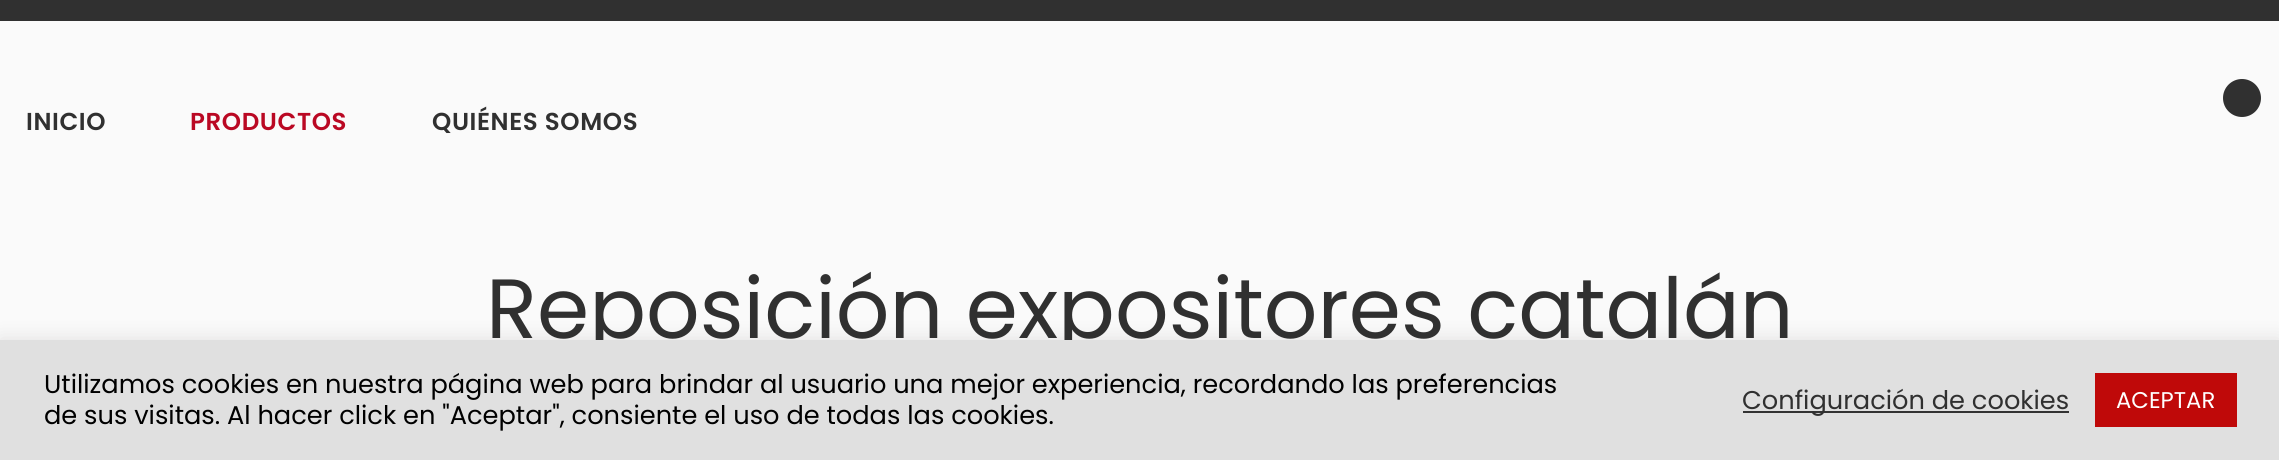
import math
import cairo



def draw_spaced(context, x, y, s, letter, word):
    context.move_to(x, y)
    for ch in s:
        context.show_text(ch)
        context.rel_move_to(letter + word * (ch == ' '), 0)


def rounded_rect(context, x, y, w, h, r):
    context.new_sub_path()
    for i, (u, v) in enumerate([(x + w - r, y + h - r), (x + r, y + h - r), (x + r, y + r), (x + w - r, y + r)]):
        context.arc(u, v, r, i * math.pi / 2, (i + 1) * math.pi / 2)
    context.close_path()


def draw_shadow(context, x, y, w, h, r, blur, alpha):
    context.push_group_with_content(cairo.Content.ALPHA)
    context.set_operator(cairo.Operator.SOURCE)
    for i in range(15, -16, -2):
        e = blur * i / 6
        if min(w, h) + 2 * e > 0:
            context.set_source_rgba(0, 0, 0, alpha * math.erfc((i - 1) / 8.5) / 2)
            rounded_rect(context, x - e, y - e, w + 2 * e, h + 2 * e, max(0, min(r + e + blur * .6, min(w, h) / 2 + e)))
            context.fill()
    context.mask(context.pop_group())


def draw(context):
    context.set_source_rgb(250 / 255, 250 / 255, 250 / 255)
    context.paint()
    context.set_source_rgb(48 / 255, 48 / 255, 48 / 255)
    context.rectangle(0, 0, 2279, 21)
    context.fill()
    context.arc(2242, 98, 19, 0, 2 * math.pi)
    context.fill()
    context.set_source_rgb(172 / 255, 171 / 255, 171 / 255)
    draw_shadow(context, 0, 338, 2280, 121, 0, 9, 0.3)
    context.select_font_face("Poppins SemiBold")
    context.set_font_size(24.5)
    context.set_source_rgb(48 / 255, 48 / 255, 48 / 255)
    draw_spaced(context, 26, 130, "INICIO", 0.6, 0)
    context.set_source_rgb(186 / 255, 8 / 255, 35 / 255)
    draw_spaced(context, 190, 130, "PRODUCTOS", 0.6, 0)
    context.set_source_rgb(48 / 255, 48 / 255, 48 / 255)
    draw_spaced(context, 432, 130, "QUIÉNES SOMOS", 0.6, 0)
    context.select_font_face("Poppins")
    context.set_font_size(84)
    context.move_to(486, 338)
    context.show_text("Reposición expositores catalán")
    context.set_source_rgb(224 / 255, 224 / 255, 224 / 255)
    context.rectangle(0, 340, 2279, 120)
    context.fill()
    context.set_font_size(25.67)
    context.set_source_rgb(0, 0, 0)
    context.move_to(44, 393)
    context.show_text("Utilizamos cookies en nuestra página web para brindar al usuario una mejor experiencia, recordando las preferencias")
    context.move_to(44, 424)
    context.show_text("de sus visitas. Al hacer click en \"Aceptar\", consiente el uso de todas las cookies.")
    context.set_source_rgb(51 / 255, 51 / 255, 51 / 255)
    context.rectangle(1743, 411, 326, 2)
    context.fill()
    context.set_source_rgb(48 / 255, 48 / 255, 48 / 255)
    context.move_to(1742, 409)
    context.show_text("Configuración de cookies")
    context.set_source_rgb(191 / 255, 9 / 255, 9 / 255)
    context.rectangle(2095, 373, 142, 54)
    context.fill()
    context.set_font_size(22.75)
    context.set_source_rgb(1, 1, 1)
    context.move_to(2116, 408)
    context.show_text("ACEPTAR")


surface = cairo.ImageSurface(cairo.Format.RGB24, 2279, 460)
context = cairo.Context(surface)
options = cairo.FontOptions()
options.set_hint_metrics(cairo.HintMetrics.OFF)
options.set_hint_style(cairo.HintStyle.NONE)
context.set_font_options(options)
context.set_miter_limit(4)
draw(context)
surface.write_to_png("out.png")
